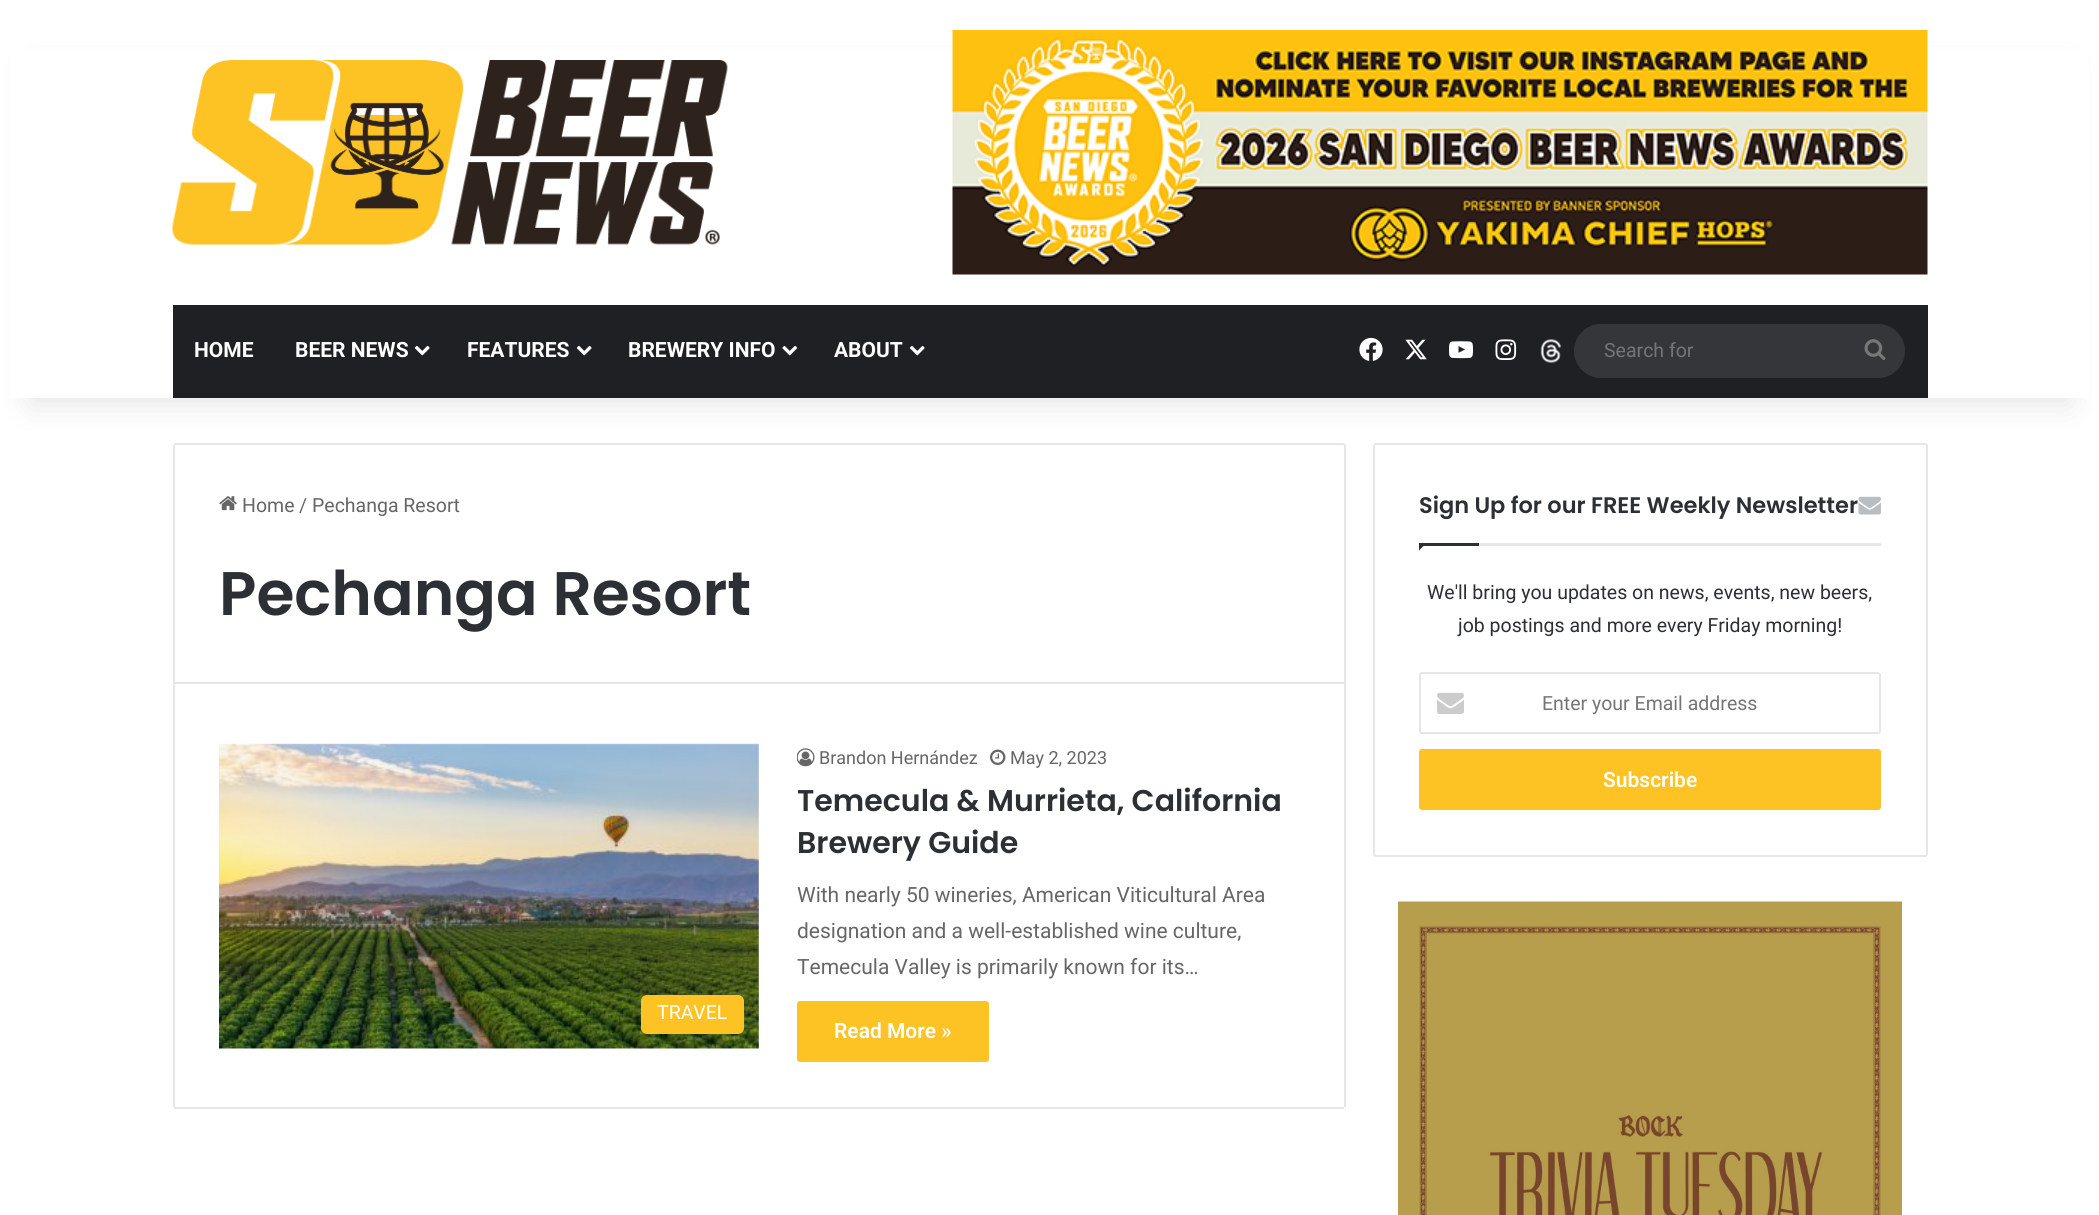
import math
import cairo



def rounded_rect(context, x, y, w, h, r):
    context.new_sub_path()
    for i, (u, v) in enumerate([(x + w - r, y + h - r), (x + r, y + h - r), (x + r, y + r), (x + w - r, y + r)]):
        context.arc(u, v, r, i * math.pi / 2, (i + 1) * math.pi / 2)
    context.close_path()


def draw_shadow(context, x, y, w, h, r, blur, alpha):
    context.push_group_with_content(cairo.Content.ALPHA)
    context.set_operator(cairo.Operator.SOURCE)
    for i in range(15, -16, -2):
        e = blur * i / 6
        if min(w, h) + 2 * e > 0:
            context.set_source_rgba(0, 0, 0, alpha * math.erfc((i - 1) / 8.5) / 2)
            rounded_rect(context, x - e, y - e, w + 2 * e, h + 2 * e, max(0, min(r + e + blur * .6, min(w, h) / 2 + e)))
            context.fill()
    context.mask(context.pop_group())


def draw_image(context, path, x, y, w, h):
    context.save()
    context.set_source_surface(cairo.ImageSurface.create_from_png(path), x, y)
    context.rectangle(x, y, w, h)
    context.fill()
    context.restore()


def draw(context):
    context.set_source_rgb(1, 1, 1)
    context.paint()
    context.new_path()
    context.move_to(176, 444)
    context.line_to(1343, 444)
    context.curve_to(1344, 444, 1345, 445, 1345, 446)
    context.line_to(1345, 683)
    context.line_to(174, 683)
    context.line_to(174, 446)
    context.curve_to(174, 445, 175, 444, 176, 444)
    context.close_path()
    context.set_source_rgb(230 / 255, 230 / 255, 230 / 255)
    context.stroke()
    rounded_rect(context, 1374, 444, 553, 412, 2)
    context.stroke()
    context.set_source_rgb(0, 0, 0)
    draw_shadow(context, 30, 68, 2040, 337, 0, 15, 0.1)
    context.set_source_rgb(1, 1, 1)
    context.rectangle(11, 49, 2078, 349)
    context.fill()
    draw_image(context, "images/1.png", 172, 60, 556, 185)
    draw_image(context, "images/2.png", 952, 30, 976, 245)
    context.set_source_rgb(31 / 255, 32 / 255, 36 / 255)
    context.rectangle(173, 305, 1755, 93)
    context.fill()
    draw_image(context, "images/3.png", 414, 345, 16, 11)
    draw_image(context, "images/3.png", 576, 345, 16, 11)
    draw_image(context, "images/4.png", 782, 345, 16, 11)
    draw_image(context, "images/3.png", 909, 345, 16, 11)
    draw_image(context, "images/5.png", 1359, 337, 24, 24)
    draw_image(context, "images/6.png", 1405, 339, 22, 21)
    draw_image(context, "images/7.png", 1449, 341, 24, 18)
    draw_image(context, "images/8.png", 1495, 339, 22, 21)
    draw_image(context, "images/9.png", 1540, 339, 22, 24)
    context.set_source_rgb(53 / 255, 54 / 255, 58 / 255)
    rounded_rect(context, 1574, 324, 331, 54, 27)
    context.fill()
    draw_image(context, "images/10.png", 1864, 339, 22, 21)
    draw_image(context, "images/11.png", 219, 496, 18, 15)
    context.set_source_rgb(230 / 255, 230 / 255, 230 / 255)
    context.rectangle(1344, 684, 2, 423)
    context.fill()
    context.rectangle(174, 1107, 1170, 2)
    context.fill()
    context.rectangle(173, 684, 2, 423)
    context.fill()
    draw_image(context, "images/12.png", 219, 743, 540, 306)
    context.set_source_rgb(253 / 255, 194 / 255, 36 / 255)
    rounded_rect(context, 641, 995, 103, 39, 6)
    context.fill()
    draw_image(context, "images/13.png", 797, 748, 18, 19)
    draw_image(context, "images/14.png", 990, 749, 16, 16)
    rounded_rect(context, 797, 1001, 192, 61, 3)
    context.fill()
    context.set_source_rgb(230 / 255, 230 / 255, 230 / 255)
    context.rectangle(1479, 543, 402, 3)
    context.fill()
    draw_image(context, "images/15.png", 1858, 496, 23, 19)
    context.set_source_rgb(44 / 255, 47 / 255, 52 / 255)
    context.new_path()
    context.move_to(1419, 543)
    context.line_to(1426.5, 543)
    context.line_to(1419, 550.5)
    context.close_path()
    context.fill()
    context.rectangle(1419, 543, 60, 3)
    context.fill()
    rounded_rect(context, 1420, 673, 460, 60, 2)
    context.set_source_rgb(230 / 255, 230 / 255, 230 / 255)
    context.stroke()
    draw_image(context, "images/16.png", 1437, 692, 27, 22)
    context.set_source_rgb(253 / 255, 194 / 255, 36 / 255)
    rounded_rect(context, 1419, 749, 462, 61, 3)
    context.fill()
    draw_image(context, "images/17.png", 1398, 901, 504, 314)
    context.select_font_face("Roboto", cairo.FontSlant.NORMAL, cairo.FontWeight.BOLD)
    context.set_font_size(21)
    context.set_source_rgb(1, 1, 1)
    context.move_to(194, 357)
    context.show_text("HOME")
    context.move_to(295, 357)
    context.show_text("BEER NEWS")
    context.move_to(467, 357)
    context.show_text("FEATURES")
    context.move_to(628, 357)
    context.show_text("BREWERY INFO")
    context.move_to(834, 357)
    context.show_text("ABOUT")
    context.select_font_face("Roboto")
    context.set_font_size(19.5)
    context.set_source_rgb(117 / 255, 117 / 255, 117 / 255)
    context.move_to(1604, 357)
    context.show_text("Search for")
    context.set_source_rgb(102 / 255, 102 / 255, 102 / 255)
    context.move_to(242, 512)
    context.show_text("Home")
    context.move_to(299, 512)
    context.show_text("/")
    context.move_to(312, 512)
    context.show_text("Pechanga Resort")
    context.select_font_face("Poppins SemiBold")
    context.set_font_size(61.5)
    context.set_source_rgb(44 / 255, 47 / 255, 52 / 255)
    context.move_to(219, 615)
    context.show_text("Pechanga Resort")
    context.select_font_face("Roboto")
    context.set_font_size(19.5)
    context.set_source_rgb(1, 1, 1)
    context.move_to(657, 1019)
    context.show_text("TRAVEL")
    context.set_font_size(18)
    context.set_source_rgb(102 / 255, 102 / 255, 102 / 255)
    context.move_to(819, 764)
    context.show_text("Brandon Hernández")
    context.move_to(1010, 764)
    context.show_text("May 2, 2023")
    context.select_font_face("Poppins SemiBold")
    context.set_font_size(30)
    context.set_source_rgb(44 / 255, 47 / 255, 52 / 255)
    context.move_to(797, 811)
    context.show_text("Temecula & Murrieta, California")
    context.move_to(797, 853)
    context.show_text("Brewery Guide")
    context.select_font_face("Roboto")
    context.set_font_size(21)
    context.set_source_rgb(102 / 255, 102 / 255, 102 / 255)
    context.move_to(797, 902)
    context.show_text("With nearly 50 wineries, American Viticultural Area")
    context.move_to(797, 938)
    context.show_text("designation and a well-established wine culture,")
    context.move_to(797, 974)
    context.show_text("Temecula Valley is primarily known for its…")
    context.select_font_face("Roboto SemiBold")
    context.set_source_rgb(1, 1, 1)
    context.move_to(834, 1038)
    context.show_text("Read More »")
    context.select_font_face("Poppins SemiBold")
    context.set_font_size(22.5)
    context.set_source_rgb(44 / 255, 47 / 255, 52 / 255)
    context.move_to(1419, 513)
    context.show_text("Sign Up for our FREE Weekly Newsletter")
    context.select_font_face("Roboto")
    context.set_font_size(19.5)
    context.move_to(1427, 599)
    context.show_text("We'll bring you updates on news, events, new beers,")
    context.move_to(1458, 632)
    context.show_text("job postings and more every Friday morning!")
    context.set_source_rgb(117 / 255, 117 / 255, 117 / 255)
    context.move_to(1542, 710)
    context.show_text("Enter your Email address")
    context.select_font_face("Roboto SemiBold")
    context.set_font_size(21)
    context.set_source_rgb(1, 1, 1)
    context.move_to(1603, 787)
    context.show_text("Subscribe")


surface = cairo.ImageSurface(cairo.Format.RGB24, 2099, 1215)
context = cairo.Context(surface)
options = cairo.FontOptions()
options.set_hint_metrics(cairo.HintMetrics.OFF)
options.set_hint_style(cairo.HintStyle.NONE)
context.set_font_options(options)
context.set_miter_limit(4)
draw(context)
surface.write_to_png("out.png")
